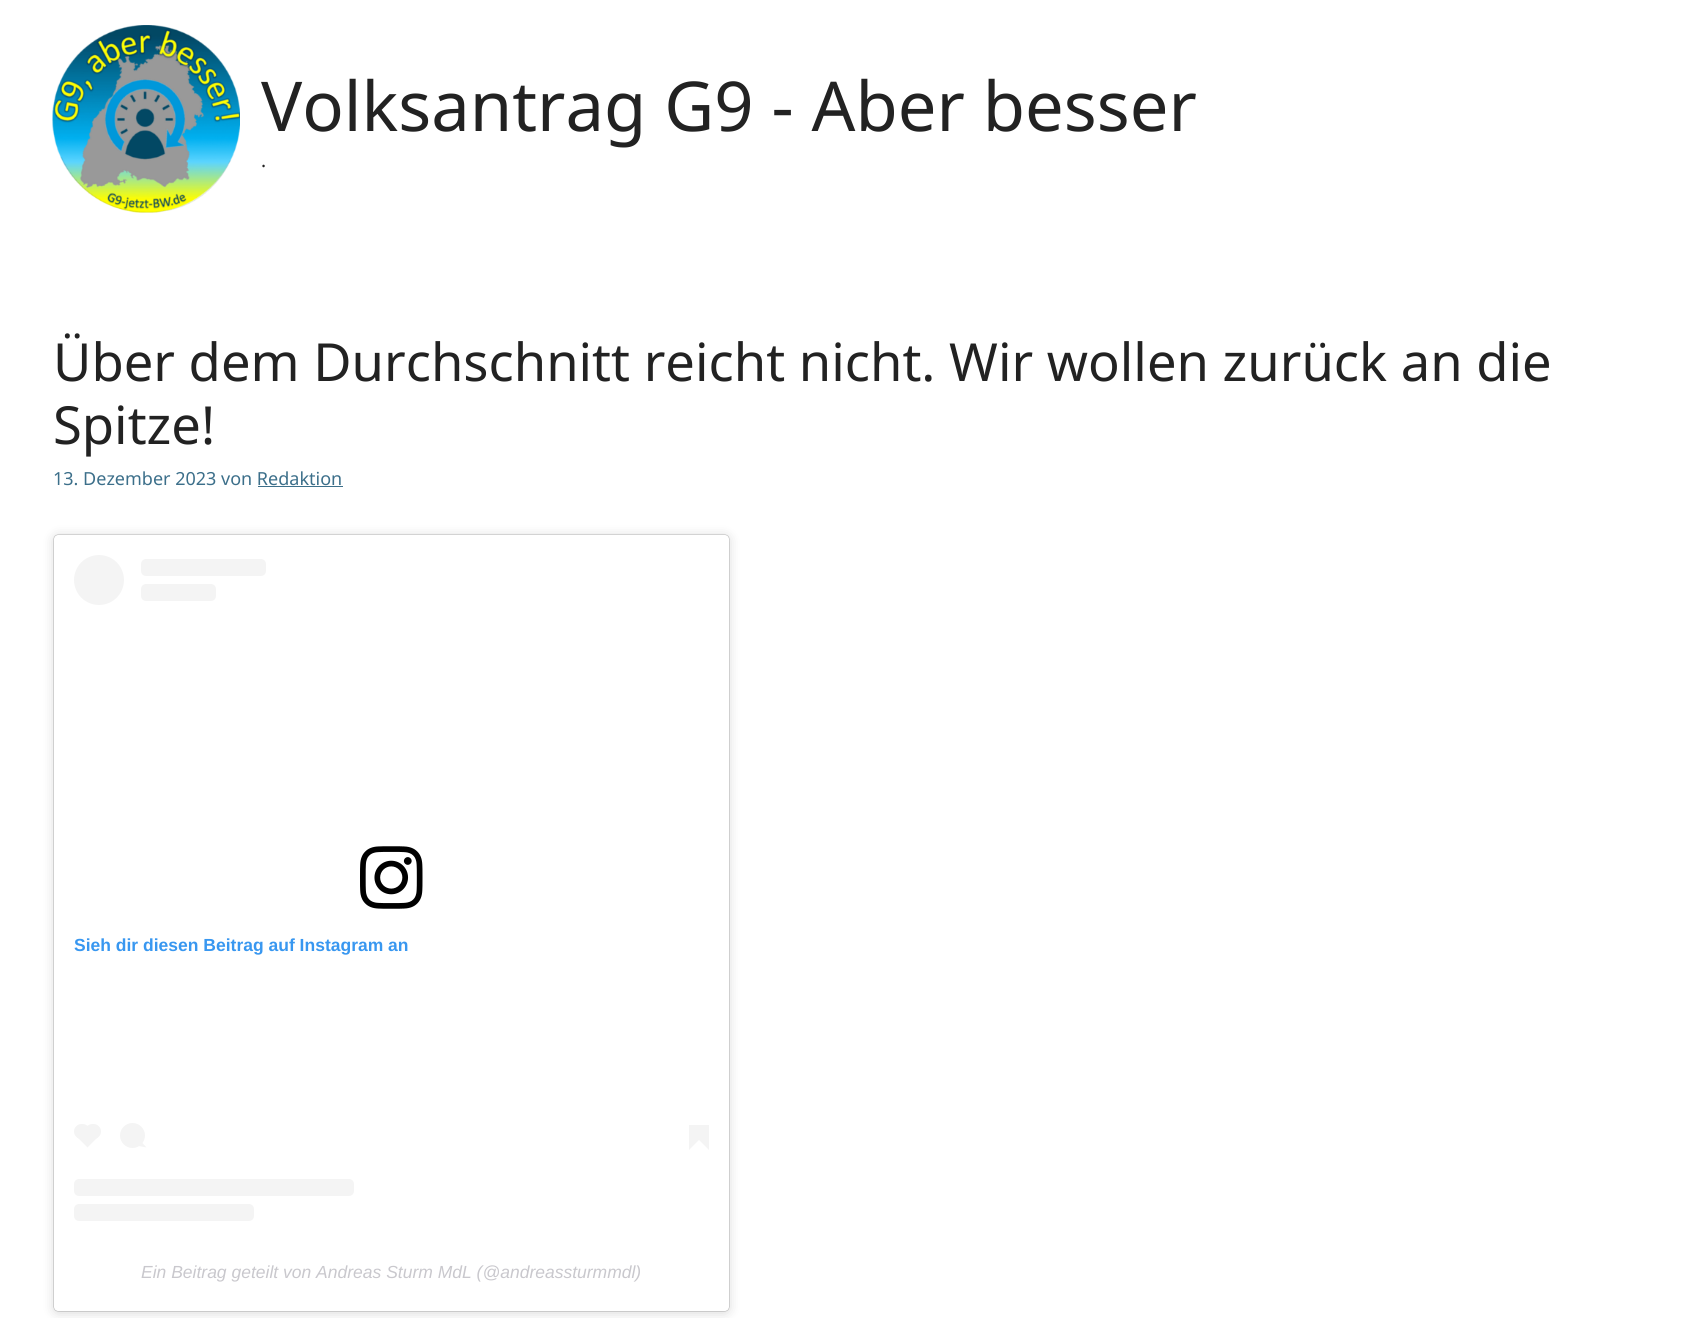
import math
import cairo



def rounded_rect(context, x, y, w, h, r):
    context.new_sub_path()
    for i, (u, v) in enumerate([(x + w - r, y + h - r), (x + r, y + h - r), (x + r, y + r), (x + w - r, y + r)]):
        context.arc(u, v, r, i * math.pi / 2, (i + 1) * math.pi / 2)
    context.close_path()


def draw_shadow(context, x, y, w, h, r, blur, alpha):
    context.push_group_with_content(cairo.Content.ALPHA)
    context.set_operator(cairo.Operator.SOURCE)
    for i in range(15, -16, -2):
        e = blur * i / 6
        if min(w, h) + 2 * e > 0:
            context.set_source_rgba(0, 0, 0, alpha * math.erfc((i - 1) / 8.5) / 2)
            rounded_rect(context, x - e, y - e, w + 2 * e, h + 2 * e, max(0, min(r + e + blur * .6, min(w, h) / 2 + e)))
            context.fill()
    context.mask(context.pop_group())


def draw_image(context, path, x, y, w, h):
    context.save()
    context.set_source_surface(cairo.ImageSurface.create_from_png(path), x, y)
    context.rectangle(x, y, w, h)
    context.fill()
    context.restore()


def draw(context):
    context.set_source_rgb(1, 1, 1)
    context.paint()
    draw_image(context, "images/1.png", 52, 25, 188, 188)
    context.set_source_rgb(60 / 255, 111 / 255, 138 / 255)
    context.rectangle(258, 486, 85, 1)
    context.fill()
    context.set_source_rgb(0, 0, 0)
    draw_shadow(context, 54, 536, 675, 777, 4, 6, 0.15)
    draw_shadow(context, 54, 535, 675, 776, 4, 0.5, 0.5)
    context.set_source_rgb(1, 1, 1)
    rounded_rect(context, 54, 535, 675, 776, 4)
    context.fill()
    context.set_source_rgb(244 / 255, 244 / 255, 244 / 255)
    context.arc(99, 580, 25, 0, 2 * math.pi)
    context.fill()
    rounded_rect(context, 141, 559, 125, 17, 5)
    context.fill()
    rounded_rect(context, 141, 584, 75, 17, 5)
    context.fill()
    draw_image(context, "images/2.png", 360, 846, 63, 63)
    rounded_rect(context, 74, 1124, 16, 15, 7.5)
    context.fill()
    context.new_path()
    context.move_to(76.5, 1136.5)
    context.line_to(87.5, 1125.5)
    context.line_to(98.5, 1136.5)
    context.line_to(87.5, 1147.5)
    context.close_path()
    context.fill()
    rounded_rect(context, 85, 1124, 16, 15, 7.5)
    context.fill()
    context.arc(132.5, 1135.5, 12.5, 0, 2 * math.pi)
    context.fill()
    context.new_path()
    context.move_to(138.5, 1146)
    context.line_to(141, 1141.5)
    context.line_to(146.5, 1147.5)
    context.close_path()
    context.fill()
    context.rectangle(689, 1125, 20, 15)
    context.fill()
    context.new_path()
    context.move_to(689, 1140)
    context.line_to(699, 1140)
    context.line_to(689, 1150)
    context.close_path()
    context.fill()
    context.new_path()
    context.move_to(699, 1140)
    context.line_to(709, 1140)
    context.line_to(709, 1150)
    context.close_path()
    context.fill()
    rounded_rect(context, 74, 1179, 280, 17, 5)
    context.fill()
    rounded_rect(context, 74, 1204, 180, 17, 5)
    context.fill()
    context.select_font_face("Noto Sans")
    context.set_font_size(68.75)
    context.set_source_rgb(34 / 255, 34 / 255, 34 / 255)
    context.move_to(261, 131)
    context.show_text("Volksantrag G9 - Aber besser")
    context.set_font_size(19)
    context.move_to(261, 167)
    context.show_text(".")
    context.set_font_size(52.5)
    context.move_to(53, 381)
    context.show_text("Über dem Durchschnitt reicht nicht. Wir wollen zurück an die")
    context.move_to(53, 444)
    context.show_text("Spitze!")
    context.set_font_size(18)
    context.set_source_rgb(60 / 255, 111 / 255, 138 / 255)
    context.move_to(53, 485)
    context.show_text("13. Dezember 2023 von Redaktion")
    context.select_font_face("Liberation Sans", cairo.FontSlant.NORMAL, cairo.FontWeight.BOLD)
    context.set_font_size(17.5)
    context.set_source_rgb(56 / 255, 151 / 255, 240 / 255)
    context.move_to(74, 951)
    context.show_text("Sieh dir diesen Beitrag auf Instagram an")
    context.select_font_face("Liberation Sans", cairo.FontSlant.ITALIC)
    context.set_source_rgb(201 / 255, 200 / 255, 205 / 255)
    context.move_to(141, 1278)
    context.show_text("Ein Beitrag geteilt von Andreas Sturm MdL (@andreassturmmdl)")


surface = cairo.ImageSurface(cairo.Format.RGB24, 1692, 1318)
context = cairo.Context(surface)
options = cairo.FontOptions()
options.set_hint_metrics(cairo.HintMetrics.OFF)
options.set_hint_style(cairo.HintStyle.NONE)
context.set_font_options(options)
context.set_miter_limit(4)
draw(context)
surface.write_to_png("out.png")
